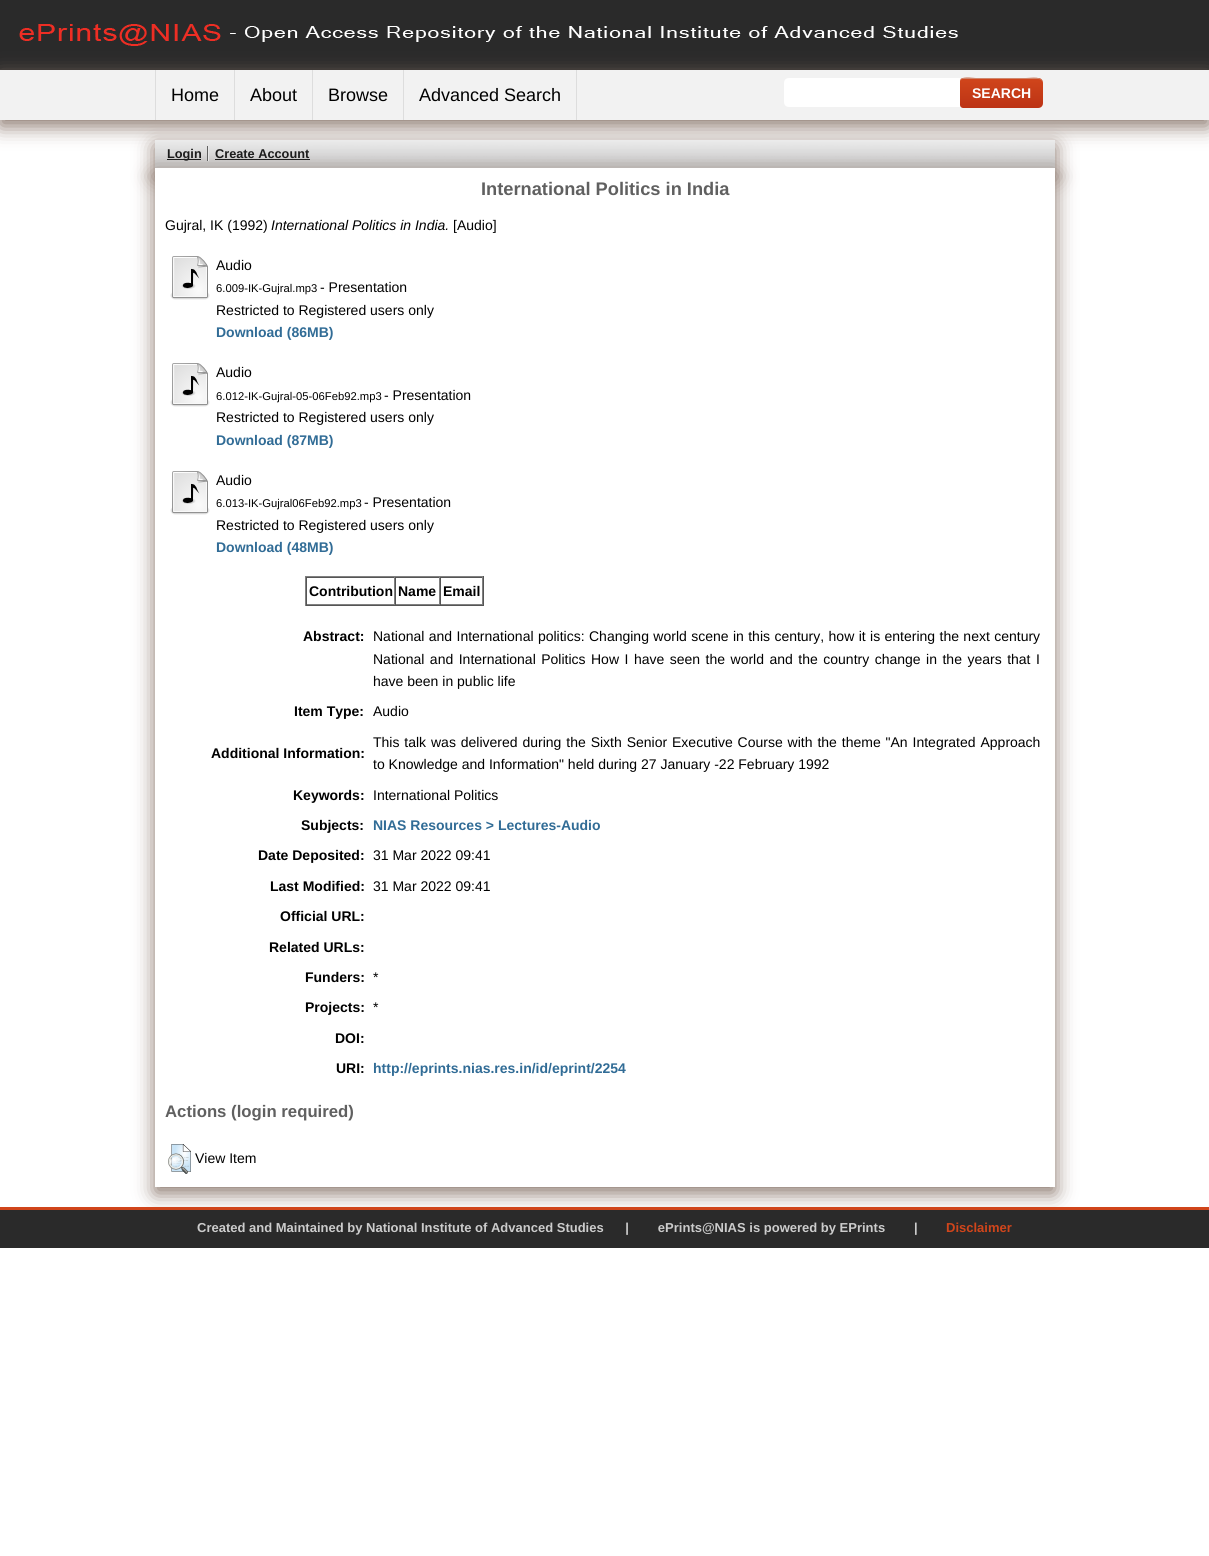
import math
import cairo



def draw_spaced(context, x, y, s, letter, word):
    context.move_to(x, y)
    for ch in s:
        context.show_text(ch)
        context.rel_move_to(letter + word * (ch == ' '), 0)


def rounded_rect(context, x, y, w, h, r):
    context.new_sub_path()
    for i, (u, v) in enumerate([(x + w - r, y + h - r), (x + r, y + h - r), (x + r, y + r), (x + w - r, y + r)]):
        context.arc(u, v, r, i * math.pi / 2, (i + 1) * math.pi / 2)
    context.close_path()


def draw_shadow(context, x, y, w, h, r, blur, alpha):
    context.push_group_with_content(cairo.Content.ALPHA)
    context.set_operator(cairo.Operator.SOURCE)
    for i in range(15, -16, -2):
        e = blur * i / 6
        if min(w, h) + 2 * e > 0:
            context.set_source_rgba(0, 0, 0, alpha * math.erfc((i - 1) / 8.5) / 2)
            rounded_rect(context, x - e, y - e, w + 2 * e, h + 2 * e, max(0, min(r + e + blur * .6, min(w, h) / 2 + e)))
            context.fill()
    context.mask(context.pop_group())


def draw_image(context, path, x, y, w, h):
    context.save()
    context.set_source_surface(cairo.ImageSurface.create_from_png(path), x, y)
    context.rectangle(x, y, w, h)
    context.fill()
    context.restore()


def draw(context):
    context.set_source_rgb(1, 1, 1)
    context.paint()
    context.set_source_rgb(42 / 255, 42 / 255, 42 / 255)
    context.rectangle(0, 0, 1209, 70)
    context.fill()
    context.set_source_rgb(135 / 255, 115 / 255, 104 / 255)
    draw_shadow(context, 0, 76, 1209, 50, 0, 10, 1)
    draw_image(context, "images/1.png", 19, 24, 939, 22)
    context.set_source_rgb(242 / 255, 242 / 255, 242 / 255)
    context.rectangle(0, 70, 1209, 50)
    context.fill()
    context.set_source_rgb(135 / 255, 115 / 255, 104 / 255)
    draw_shadow(context, 155, 146, 900, 33, 0, 10, 1)
    context.set_source_rgb(221 / 255, 221 / 255, 221 / 255)
    context.rectangle(234, 70, 1, 50)
    context.fill()
    context.rectangle(155, 70, 1, 50)
    context.fill()
    context.rectangle(312, 70, 1, 50)
    context.fill()
    context.rectangle(403, 70, 1, 50)
    context.fill()
    context.rectangle(576, 70, 1, 50)
    context.fill()
    context.set_source_rgb(204 / 255, 204 / 255, 204 / 255)
    context.rectangle(155, 140, 900, 28)
    context.fill()
    draw_image(context, "images/2.png", 155, 140, 900, 22)
    context.set_source_rgb(1, 1, 1)
    context.new_path()
    context.move_to(789, 78)
    context.line_to(960, 78)
    context.line_to(960, 107)
    context.line_to(789, 107)
    context.curve_to(786, 107, 784, 105, 784, 102)
    context.line_to(784, 83)
    context.curve_to(784, 80, 786, 78, 789, 78)
    context.close_path()
    context.fill()
    gradient = cairo.LinearGradient(1002, 78, 1002, 108)
    gradient.add_color_stop_rgba(0.05, 208 / 255, 69 / 255, 27 / 255, 1)
    gradient.add_color_stop_rgba(1, 188 / 255, 51 / 255, 21 / 255, 1)
    context.set_source(gradient)
    context.new_path()
    context.move_to(963, 78)
    context.line_to(1038, 78)
    context.curve_to(1041, 78, 1043, 80, 1043, 83)
    context.line_to(1043, 103)
    context.curve_to(1043, 106, 1041, 108, 1038, 108)
    context.line_to(963, 108)
    context.curve_to(961.5, 108, 960, 106.5, 960, 105)
    context.line_to(960, 81)
    context.curve_to(960, 79.5, 961.5, 78, 963, 78)
    context.close_path()
    context.fill()
    context.set_source_rgb(207 / 255, 134 / 255, 108 / 255)
    context.new_path()
    context.move_to(963, 79)
    context.line_to(1038, 79)
    context.curve_to(1041, 79, 1043, 81, 1043, 84)
    context.curve_to(1043, 75, 1031, 78, 1026, 78)
    context.line_to(976, 78)
    context.curve_to(972, 78, 960, 75, 960, 82)
    context.curve_to(960, 80, 961, 79, 963, 79)
    context.close_path()
    context.fill()
    context.set_source_rgb(135 / 255, 115 / 255, 104 / 255)
    draw_shadow(context, 155, 174, 900, 1019, 0, 10, 1)
    context.set_source_rgb(96 / 255, 96 / 255, 96 / 255)
    context.rectangle(207, 146, 1, 15)
    context.fill()
    context.set_source_rgb(28 / 255, 28 / 255, 28 / 255)
    context.rectangle(167, 159, 34, 1)
    context.fill()
    context.set_source_rgb(232 / 255, 232 / 255, 232 / 255)
    context.rectangle(208, 146, 1, 15)
    context.fill()
    context.set_source_rgb(28 / 255, 28 / 255, 28 / 255)
    context.rectangle(215, 159, 95, 1)
    context.fill()
    context.set_source_rgb(1, 1, 1)
    context.rectangle(155, 168, 900, 1019)
    context.fill()
    draw_image(context, "images/3.png", 170, 256, 40, 44)
    draw_image(context, "images/3.png", 170, 363, 40, 44)
    draw_image(context, "images/3.png", 170, 471, 40, 44)
    context.set_source_rgb(128 / 255, 128 / 255, 128 / 255)
    context.rectangle(305, 576, 179, 1)
    context.fill()
    context.set_source_rgb(85 / 255, 85 / 255, 85 / 255)
    context.rectangle(483, 576, 1, 30)
    context.fill()
    context.rectangle(305, 605, 179, 1)
    context.fill()
    context.set_source_rgb(128 / 255, 128 / 255, 128 / 255)
    context.rectangle(305, 576, 1, 30)
    context.fill()
    context.set_source_rgb(85 / 255, 85 / 255, 85 / 255)
    context.rectangle(306, 577, 177, 1)
    context.fill()
    context.set_source_rgb(128 / 255, 128 / 255, 128 / 255)
    context.rectangle(394, 577, 1, 28)
    context.fill()
    context.rectangle(306, 604, 89, 1)
    context.fill()
    context.set_source_rgb(85 / 255, 85 / 255, 85 / 255)
    context.rectangle(306, 577, 1, 28)
    context.fill()
    context.set_source_rgb(128 / 255, 128 / 255, 128 / 255)
    context.rectangle(439, 577, 1, 28)
    context.fill()
    context.rectangle(395, 604, 45, 1)
    context.fill()
    context.set_source_rgb(85 / 255, 85 / 255, 85 / 255)
    context.rectangle(395, 577, 1, 28)
    context.fill()
    context.set_source_rgb(128 / 255, 128 / 255, 128 / 255)
    context.rectangle(482, 577, 1, 28)
    context.fill()
    context.rectangle(440, 604, 43, 1)
    context.fill()
    context.set_source_rgb(85 / 255, 85 / 255, 85 / 255)
    context.rectangle(440, 577, 1, 28)
    context.fill()
    draw_image(context, "images/4.png", 168, 1144, 23, 30)
    context.set_source_rgb(42 / 255, 42 / 255, 42 / 255)
    context.rectangle(0, 1210, 1209, 38)
    context.fill()
    context.set_source_rgb(208 / 255, 69 / 255, 27 / 255)
    context.rectangle(0, 1207, 1209, 3)
    context.fill()
    context.select_font_face("Liberation Sans")
    context.set_font_size(18)
    context.set_source_rgb(0, 0, 0)
    context.move_to(171, 101)
    context.show_text("Home")
    context.move_to(250, 101)
    context.show_text("About")
    context.move_to(328, 101)
    context.show_text("Browse")
    context.move_to(419, 101)
    context.show_text("Advanced Search")
    context.select_font_face("Liberation Sans", cairo.FontSlant.NORMAL, cairo.FontWeight.BOLD)
    context.set_font_size(14)
    context.set_source_rgb(1, 1, 1)
    context.move_to(972, 98)
    context.show_text("SEARCH")
    context.set_font_size(12.75)
    context.set_source_rgb(28 / 255, 28 / 255, 28 / 255)
    context.move_to(167, 158)
    context.show_text("Login")
    context.move_to(215, 158)
    context.show_text("Create Account")
    context.set_font_size(18.25)
    context.set_source_rgb(96 / 255, 96 / 255, 96 / 255)
    context.move_to(481, 195)
    context.show_text("International Politics in India")
    context.select_font_face("Liberation Sans")
    context.set_font_size(14)
    context.set_source_rgb(0, 0, 0)
    context.move_to(165, 230)
    context.show_text("Gujral, IK (1992)")
    context.select_font_face("Liberation Sans", cairo.FontSlant.ITALIC)
    context.move_to(271, 230)
    context.show_text("International Politics in India.")
    context.select_font_face("Liberation Sans")
    context.move_to(453, 230)
    context.show_text("[Audio]")
    context.move_to(216, 270)
    context.show_text("Audio")
    context.set_font_size(11.25)
    context.move_to(216, 292)
    context.show_text("6.009-IK-Gujral.mp3")
    context.set_font_size(14)
    context.move_to(320, 292)
    context.show_text("- Presentation")
    context.move_to(216, 315)
    context.show_text("Restricted to Registered users only")
    context.select_font_face("Liberation Sans", cairo.FontSlant.NORMAL, cairo.FontWeight.BOLD)
    context.set_source_rgb(49 / 255, 108 / 255, 150 / 255)
    context.move_to(216, 337)
    context.show_text("Download (86MB)")
    context.select_font_face("Liberation Sans")
    context.set_source_rgb(0, 0, 0)
    context.move_to(216, 377)
    context.show_text("Audio")
    context.set_font_size(11.25)
    context.move_to(216, 400)
    context.show_text("6.012-IK-Gujral-05-06Feb92.mp3")
    context.set_font_size(14)
    context.move_to(384, 400)
    context.show_text("- Presentation")
    context.move_to(216, 422)
    context.show_text("Restricted to Registered users only")
    context.select_font_face("Liberation Sans", cairo.FontSlant.NORMAL, cairo.FontWeight.BOLD)
    context.set_source_rgb(49 / 255, 108 / 255, 150 / 255)
    context.move_to(216, 445)
    context.show_text("Download (87MB)")
    context.select_font_face("Liberation Sans")
    context.set_source_rgb(0, 0, 0)
    context.move_to(216, 485)
    context.show_text("Audio")
    context.set_font_size(11.25)
    context.move_to(216, 507)
    context.show_text("6.013-IK-Gujral06Feb92.mp3")
    context.set_font_size(14)
    context.move_to(364, 507)
    context.show_text("- Presentation")
    context.move_to(216, 530)
    context.show_text("Restricted to Registered users only")
    context.select_font_face("Liberation Sans", cairo.FontSlant.NORMAL, cairo.FontWeight.BOLD)
    context.set_source_rgb(49 / 255, 108 / 255, 150 / 255)
    context.move_to(216, 552)
    context.show_text("Download (48MB)")
    context.set_source_rgb(0, 0, 0)
    context.move_to(309, 596)
    context.show_text("Contribution")
    context.move_to(398, 596)
    context.show_text("Name")
    context.move_to(443, 596)
    context.show_text("Email")
    context.move_to(303, 641)
    context.show_text("Abstract:")
    context.select_font_face("Liberation Sans")
    draw_spaced(context, 373, 641, "National and International politics: Changing world scene in this century, how it is entering the next century", 0, 0.5)
    draw_spaced(context, 373, 664, "National and International Politics", 0, 1.6)
    draw_spaced(context, 591, 664, "How I have seen the world and the country change in the years that I", 0, 1.6)
    context.move_to(373, 686)
    context.show_text("have been in public life")
    context.select_font_face("Liberation Sans", cairo.FontSlant.NORMAL, cairo.FontWeight.BOLD)
    context.move_to(294, 716)
    context.show_text("Item Type:")
    context.select_font_face("Liberation Sans")
    context.move_to(373, 716)
    context.show_text("Audio")
    context.select_font_face("Liberation Sans", cairo.FontSlant.NORMAL, cairo.FontWeight.BOLD)
    context.move_to(211, 758)
    context.show_text("Additional Information:")
    context.select_font_face("Liberation Sans")
    draw_spaced(context, 373, 747, "This talk was delivered during the Sixth Senior Executive Course with the theme \"An Integrated Approach", 0, 1)
    context.move_to(373, 769)
    context.show_text("to Knowledge and Information\" held during 27 January -22 February 1992")
    context.select_font_face("Liberation Sans", cairo.FontSlant.NORMAL, cairo.FontWeight.BOLD)
    context.move_to(293, 800)
    context.show_text("Keywords:")
    context.select_font_face("Liberation Sans")
    context.move_to(373, 800)
    context.show_text("International Politics")
    context.select_font_face("Liberation Sans", cairo.FontSlant.NORMAL, cairo.FontWeight.BOLD)
    context.move_to(301, 830)
    context.show_text("Subjects:")
    context.set_source_rgb(49 / 255, 108 / 255, 150 / 255)
    context.move_to(373, 830)
    context.show_text("NIAS Resources > Lectures-Audio")
    context.set_source_rgb(0, 0, 0)
    context.move_to(258, 860)
    context.show_text("Date Deposited:")
    context.select_font_face("Liberation Sans")
    context.move_to(373, 860)
    context.show_text("31 Mar 2022 09:41")
    context.select_font_face("Liberation Sans", cairo.FontSlant.NORMAL, cairo.FontWeight.BOLD)
    context.move_to(270, 891)
    context.show_text("Last Modified:")
    context.select_font_face("Liberation Sans")
    context.move_to(373, 891)
    context.show_text("31 Mar 2022 09:41")
    context.select_font_face("Liberation Sans", cairo.FontSlant.NORMAL, cairo.FontWeight.BOLD)
    context.move_to(280, 921)
    context.show_text("Official URL:")
    context.move_to(269, 952)
    context.show_text("Related URLs:")
    context.move_to(305, 982)
    context.show_text("Funders:")
    context.select_font_face("Liberation Sans")
    context.move_to(373, 982)
    context.show_text("*")
    context.select_font_face("Liberation Sans", cairo.FontSlant.NORMAL, cairo.FontWeight.BOLD)
    context.move_to(305, 1012)
    context.show_text("Projects:")
    context.select_font_face("Liberation Sans")
    context.move_to(373, 1012)
    context.show_text("*")
    context.select_font_face("Liberation Sans", cairo.FontSlant.NORMAL, cairo.FontWeight.BOLD)
    context.move_to(335, 1043)
    context.show_text("DOI:")
    context.move_to(336, 1073)
    context.show_text("URI:")
    context.set_source_rgb(49 / 255, 108 / 255, 150 / 255)
    context.move_to(373, 1073)
    context.show_text("http://eprints.nias.res.in/id/eprint/2254")
    context.set_font_size(16.75)
    context.set_source_rgb(96 / 255, 96 / 255, 96 / 255)
    context.move_to(165, 1117)
    context.show_text("Actions (login required)")
    context.select_font_face("Liberation Sans")
    context.set_font_size(14)
    context.set_source_rgb(0, 0, 0)
    context.move_to(195, 1163)
    context.show_text("View Item")
    context.select_font_face("Liberation Sans", cairo.FontSlant.NORMAL, cairo.FontWeight.BOLD)
    context.set_font_size(13)
    context.set_source_rgb(204 / 255, 204 / 255, 204 / 255)
    context.move_to(197, 1232)
    context.show_text("Created and Maintained by National Institute of Advanced Studies      |        ePrints@NIAS is powered by EPrints        |")
    context.set_source_rgb(208 / 255, 69 / 255, 27 / 255)
    context.move_to(946, 1232)
    context.show_text("Disclaimer")


surface = cairo.ImageSurface(cairo.Format.RGB24, 1209, 1556)
context = cairo.Context(surface)
options = cairo.FontOptions()
options.set_hint_metrics(cairo.HintMetrics.OFF)
options.set_hint_style(cairo.HintStyle.NONE)
context.set_font_options(options)
context.set_miter_limit(4)
draw(context)
surface.write_to_png("out.png")
